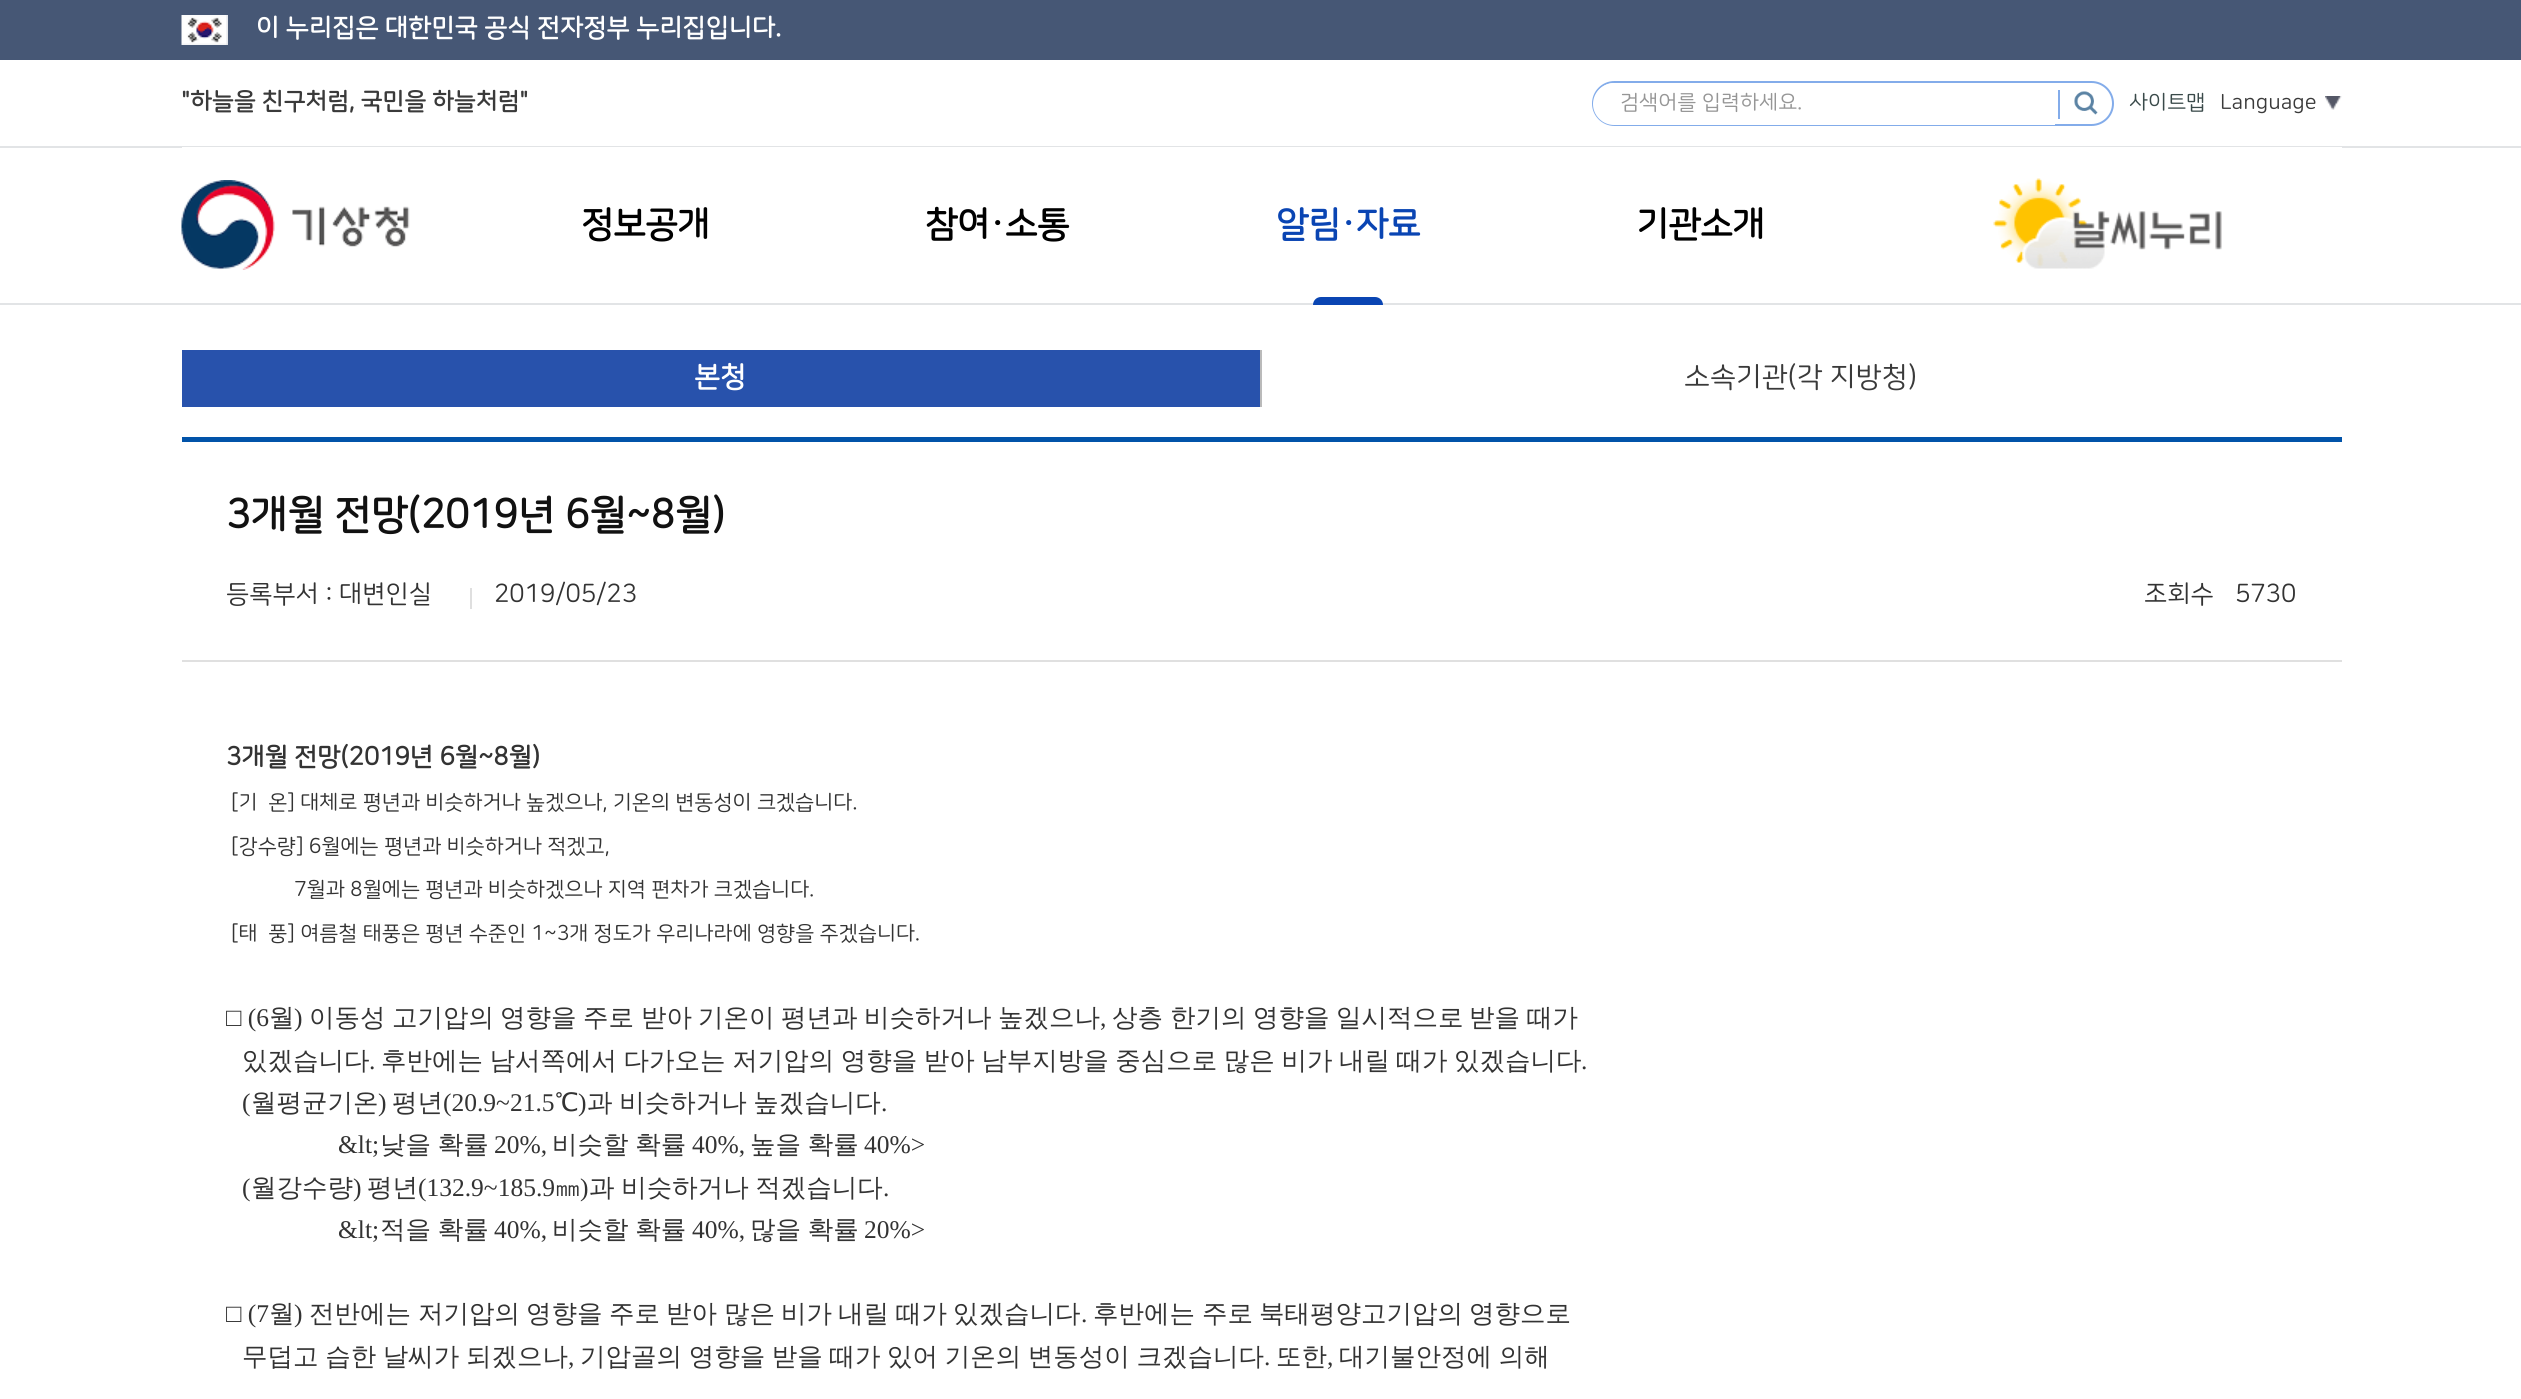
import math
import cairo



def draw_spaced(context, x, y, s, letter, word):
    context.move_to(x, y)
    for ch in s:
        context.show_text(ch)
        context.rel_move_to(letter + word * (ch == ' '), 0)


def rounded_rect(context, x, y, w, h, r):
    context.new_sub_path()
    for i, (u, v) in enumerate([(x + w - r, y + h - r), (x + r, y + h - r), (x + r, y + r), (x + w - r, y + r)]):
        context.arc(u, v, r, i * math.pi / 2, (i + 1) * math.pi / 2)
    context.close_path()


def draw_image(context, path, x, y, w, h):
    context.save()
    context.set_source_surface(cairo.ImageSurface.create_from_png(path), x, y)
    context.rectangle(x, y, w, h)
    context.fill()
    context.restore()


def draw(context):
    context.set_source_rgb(1, 1, 1)
    context.paint()
    context.set_source_rgb(70 / 255, 87 / 255, 117 / 255)
    context.rectangle(0, 0, 2521, 60)
    context.fill()
    draw_image(context, "images/1.png", 181, 15, 47, 30)
    rounded_rect(context, 1593, 82, 520, 43, 21.5)
    context.set_source_rgb(131 / 255, 172 / 255, 234 / 255)
    context.stroke()
    context.set_source_rgb(1, 1, 1)
    context.new_path()
    context.move_to(1614, 83)
    context.line_to(2055, 83)
    context.line_to(2055, 125)
    context.line_to(1614, 125)
    context.curve_to(1602.5, 125, 1593, 115.5, 1593, 104)
    context.curve_to(1593, 92.5, 1602.5, 83, 1614, 83)
    context.close_path()
    context.fill()
    draw_image(context, "images/2.png", 2074, 91, 24, 24)
    context.set_source_rgb(131 / 255, 172 / 255, 234 / 255)
    context.rectangle(2058, 90, 2, 29)
    context.fill()
    draw_image(context, "images/3.png", 2325, 96, 17, 14)
    context.set_source_rgb(226 / 255, 228 / 255, 230 / 255)
    context.rectangle(0, 146, 2521, 2)
    context.fill()
    context.rectangle(0, 303, 2521, 2)
    context.fill()
    context.set_source_rgb(1, 1, 1)
    context.rectangle(182, 147, 2160, 1)
    context.fill()
    draw_image(context, "images/4.png", 181, 180, 229, 90)
    context.set_source_rgb(10 / 255, 69 / 255, 179 / 255)
    context.new_path()
    context.move_to(1321, 297)
    context.line_to(1375, 297)
    context.curve_to(1379.5, 297, 1383, 300.5, 1383, 305)
    context.line_to(1313, 305)
    context.curve_to(1313, 300.5, 1316.5, 297, 1321, 297)
    context.close_path()
    context.fill()
    draw_image(context, "images/5.png", 1993, 178, 229, 91)
    context.set_source_rgb(40 / 255, 82 / 255, 172 / 255)
    context.rectangle(182, 350, 1078, 57)
    context.fill()
    context.set_source_rgb(186 / 255, 186 / 255, 186 / 255)
    context.rectangle(1260, 350, 2, 57)
    context.fill()
    context.set_source_rgb(1 / 255, 83 / 255, 169 / 255)
    context.rectangle(182, 437, 2160, 5)
    context.fill()
    context.set_source_rgb(223 / 255, 223 / 255, 223 / 255)
    context.rectangle(470, 588, 2, 21)
    context.fill()
    context.set_source_rgb(224 / 255, 224 / 255, 224 / 255)
    context.rectangle(182, 660, 2160, 2)
    context.fill()
    context.select_font_face("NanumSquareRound", cairo.FontSlant.NORMAL, cairo.FontWeight.BOLD)
    context.set_font_size(25.5)
    context.set_source_rgb(1, 1, 1)
    context.move_to(256, 36)
    context.show_text("이 누리집은 대한민국 공식 전자정부 누리집입니다.")
    context.set_font_size(24)
    context.set_source_rgb(58 / 255, 58 / 255, 58 / 255)
    context.move_to(181, 109)
    context.show_text("\"하늘을 친구처럼, 국민을 하늘처럼\"")
    context.select_font_face("NanumSquareRound")
    context.set_font_size(21)
    context.set_source_rgb(150 / 255, 150 / 255, 150 / 255)
    context.move_to(1620, 109)
    context.show_text("검색어를 입력하세요.")
    context.set_source_rgb(58 / 255, 74 / 255, 74 / 255)
    context.move_to(2129, 109)
    context.show_text("사이트맵")
    context.set_source_rgb(58 / 255, 58 / 255, 58 / 255)
    context.move_to(2220, 109)
    context.show_text("Language")
    context.select_font_face("NanumSquareRound", cairo.FontSlant.NORMAL, cairo.FontWeight.BOLD)
    context.set_font_size(36)
    context.set_source_rgb(0, 0, 0)
    draw_spaced(context, 581, 236, "정보공개", -0.75, 0)
    draw_spaced(context, 925, 236, "참여·소통", -0.75, 0)
    context.set_source_rgb(10 / 255, 69 / 255, 179 / 255)
    draw_spaced(context, 1276, 236, "알림·자료", -0.75, 0)
    context.set_source_rgb(0, 0, 0)
    draw_spaced(context, 1636, 236, "기관소개", -0.75, 0)
    context.set_font_size(28.5)
    context.set_source_rgb(1, 1, 1)
    context.move_to(694, 386)
    context.show_text("본청")
    context.select_font_face("NanumSquareRound")
    context.set_source_rgb(58 / 255, 58 / 255, 58 / 255)
    context.move_to(1684, 386)
    context.show_text("소속기관(각 지방청)")
    context.select_font_face("NanumSquareRound", cairo.FontSlant.NORMAL, cairo.FontWeight.BOLD)
    context.set_font_size(40.5)
    context.set_source_rgb(17 / 255, 17 / 255, 17 / 255)
    context.move_to(226, 528)
    context.show_text("3개월 전망(2019년 6월~8월)")
    context.select_font_face("NanumSquareRound")
    context.set_font_size(25.5)
    context.set_source_rgb(51 / 255, 51 / 255, 51 / 255)
    context.move_to(226, 602)
    context.show_text("등록부서 : 대변인실")
    context.move_to(494, 602)
    context.show_text("2019/05/23")
    context.move_to(2144, 602)
    context.show_text("조회수")
    context.move_to(2235, 602)
    context.show_text("5730")
    context.select_font_face("NanumSquareRound", cairo.FontSlant.NORMAL, cairo.FontWeight.BOLD)
    context.move_to(226, 765)
    context.show_text("3개월 전망(2019년 6월~8월)")
    context.select_font_face("NanumSquareRound")
    context.set_font_size(21)
    context.move_to(231, 809)
    context.show_text("[기  온] 대체로 평년과 비슷하거나 높겠으나, 기온의 변동성이 크겠습니다.")
    context.move_to(231, 853)
    context.show_text("[강수량] 6월에는 평년과 비슷하거나 적겠고,")
    context.move_to(294, 896)
    context.show_text("7월과 8월에는 평년과 비슷하겠으나 지역 편차가 크겠습니다.")
    context.move_to(231, 940)
    context.show_text("[태  풍] 여름철 태풍은 평년 수준인 1~3개 정도가 우리나라에 영향을 주겠습니다.")
    context.select_font_face("Liberation Serif")
    context.set_font_size(25.5)
    context.move_to(226, 1026)
    context.show_text("□ (6")
    context.select_font_face("WenQuanYi Zen Hei Medium")
    context.move_to(269, 1026)
    context.show_text("월")
    context.select_font_face("Liberation Serif")
    context.move_to(294, 1026)
    context.show_text(")")
    context.select_font_face("WenQuanYi Zen Hei Medium")
    context.move_to(309, 1026)
    context.show_text("이동성")
    context.move_to(392, 1026)
    context.show_text("고기압의")
    context.move_to(500, 1026)
    context.show_text("영향을")
    context.move_to(583, 1026)
    context.show_text("주로")
    context.move_to(641, 1026)
    context.show_text("받아")
    context.move_to(698, 1026)
    context.show_text("기온이")
    context.move_to(781, 1026)
    context.show_text("평년과")
    context.move_to(864, 1026)
    context.show_text("비슷하거나")
    context.move_to(998, 1026)
    context.show_text("높겠으나")
    context.select_font_face("Liberation Serif")
    context.move_to(1100, 1026)
    context.show_text(",")
    context.select_font_face("WenQuanYi Zen Hei Medium")
    context.move_to(1112, 1026)
    context.show_text("상층")
    context.move_to(1170, 1026)
    context.show_text("한기의")
    context.move_to(1253, 1026)
    context.show_text("영향을")
    context.move_to(1336, 1026)
    context.show_text("일시적으로")
    context.move_to(1469, 1026)
    context.show_text("받을")
    context.move_to(1527, 1026)
    context.show_text("때가")
    context.move_to(242, 1069)
    context.show_text("있겠습니다")
    context.select_font_face("Liberation Serif")
    context.move_to(369, 1069)
    context.show_text(".")
    context.select_font_face("WenQuanYi Zen Hei Medium")
    draw_spaced(context, 381, 1069, "후반에는 남서쪽에서 다가오는 저기압의 영향을 받아 남부지방을 중심으로 많은 비가 내릴 때가 있겠습니다", 0, -1.1)
    context.select_font_face("Liberation Serif")
    context.move_to(1581, 1069)
    context.show_text(".")
    context.move_to(242, 1111)
    context.show_text("(")
    context.select_font_face("WenQuanYi Zen Hei Medium")
    context.move_to(251, 1111)
    context.show_text("월평균기온")
    context.select_font_face("Liberation Serif")
    context.move_to(378, 1111)
    context.show_text(")")
    context.select_font_face("WenQuanYi Zen Hei Medium")
    context.move_to(392, 1111)
    context.show_text("평년")
    context.select_font_face("Liberation Serif")
    context.move_to(443, 1111)
    context.show_text("(20.9~21.5")
    context.select_font_face("WenQuanYi Zen Hei Medium")
    context.move_to(555, 1111)
    context.show_text("℃")
    context.select_font_face("Liberation Serif")
    context.move_to(578, 1111)
    context.show_text(")")
    context.select_font_face("WenQuanYi Zen Hei Medium")
    draw_spaced(context, 587, 1111, "과 비슷하거나 높겠습니다", 0, -1)
    context.select_font_face("Liberation Serif")
    context.move_to(881, 1111)
    context.show_text(".")
    context.move_to(338, 1153)
    context.show_text("&lt;")
    context.select_font_face("WenQuanYi Zen Hei Medium")
    draw_spaced(context, 380, 1153, "낮을 확률", 0, -1)
    context.select_font_face("Liberation Serif")
    context.move_to(494, 1153)
    context.show_text("20%,")
    context.select_font_face("WenQuanYi Zen Hei Medium")
    draw_spaced(context, 552, 1153, "비슷할 확률", 0, -1)
    context.select_font_face("Liberation Serif")
    context.move_to(692, 1153)
    context.show_text("40%,")
    context.select_font_face("WenQuanYi Zen Hei Medium")
    draw_spaced(context, 750, 1153, "높을 확률", 0, -1)
    context.select_font_face("Liberation Serif")
    context.move_to(864, 1153)
    context.show_text("40%>")
    context.move_to(242, 1196)
    context.show_text("(")
    context.select_font_face("WenQuanYi Zen Hei Medium")
    context.move_to(251, 1196)
    context.show_text("월강수량")
    context.select_font_face("Liberation Serif")
    context.move_to(353, 1196)
    context.show_text(")")
    context.select_font_face("WenQuanYi Zen Hei Medium")
    context.move_to(367, 1196)
    context.show_text("평년")
    context.select_font_face("Liberation Serif")
    context.move_to(418, 1196)
    context.show_text("(132.9~185.9")
    context.select_font_face("WenQuanYi Zen Hei Medium")
    context.move_to(555, 1196)
    context.show_text("㎜")
    context.select_font_face("Liberation Serif")
    context.move_to(580, 1196)
    context.show_text(")")
    context.select_font_face("WenQuanYi Zen Hei Medium")
    draw_spaced(context, 589, 1196, "과 비슷하거나 적겠습니다", 0, -1)
    context.select_font_face("Liberation Serif")
    context.move_to(883, 1196)
    context.show_text(".")
    context.move_to(338, 1238)
    context.show_text("&lt;")
    context.select_font_face("WenQuanYi Zen Hei Medium")
    draw_spaced(context, 380, 1238, "적을 확률", 0, -1)
    context.select_font_face("Liberation Serif")
    context.move_to(494, 1238)
    context.show_text("40%,")
    context.select_font_face("WenQuanYi Zen Hei Medium")
    draw_spaced(context, 552, 1238, "비슷할 확률", 0, -1)
    context.select_font_face("Liberation Serif")
    context.move_to(692, 1238)
    context.show_text("40%,")
    context.select_font_face("WenQuanYi Zen Hei Medium")
    draw_spaced(context, 750, 1238, "많을 확률", 0, -1)
    context.select_font_face("Liberation Serif")
    context.move_to(864, 1238)
    context.show_text("20%>")
    context.move_to(226, 1322)
    context.show_text("□ (7")
    context.select_font_face("WenQuanYi Zen Hei Medium")
    context.move_to(269, 1322)
    context.show_text("월")
    context.select_font_face("Liberation Serif")
    context.move_to(294, 1322)
    context.show_text(")")
    context.select_font_face("WenQuanYi Zen Hei Medium")
    context.move_to(309, 1322)
    context.show_text("전반에는")
    context.move_to(418, 1322)
    context.show_text("저기압의")
    context.move_to(526, 1322)
    context.show_text("영향을")
    context.move_to(609, 1322)
    context.show_text("주로")
    context.move_to(666, 1322)
    context.show_text("받아")
    context.move_to(724, 1322)
    context.show_text("많은")
    context.move_to(781, 1322)
    context.show_text("비가")
    context.move_to(838, 1322)
    context.show_text("내릴")
    context.move_to(896, 1322)
    context.show_text("때가")
    context.move_to(953, 1322)
    context.show_text("있겠습니다")
    context.select_font_face("Liberation Serif")
    context.move_to(1081, 1322)
    context.show_text(".")
    context.select_font_face("WenQuanYi Zen Hei Medium")
    context.move_to(1093, 1322)
    context.show_text("후반에는")
    context.move_to(1202, 1322)
    context.show_text("주로")
    context.move_to(1259, 1322)
    context.show_text("북태평양고기압의")
    context.move_to(1469, 1322)
    context.show_text("영향으로")
    draw_spaced(context, 242, 1365, "무덥고 습한 날씨가 되겠으나", 0, -1)
    context.select_font_face("Liberation Serif")
    context.move_to(568, 1365)
    context.show_text(",")
    context.select_font_face("WenQuanYi Zen Hei Medium")
    draw_spaced(context, 580, 1365, "기압골의 영향을 받을 때가 있어 기온의 변동성이 크겠습니다", 0, -1)
    context.select_font_face("Liberation Serif")
    context.move_to(1264, 1365)
    context.show_text(".")
    context.select_font_face("WenQuanYi Zen Hei Medium")
    context.move_to(1276, 1365)
    context.show_text("또한")
    context.select_font_face("Liberation Serif")
    context.move_to(1327, 1365)
    context.show_text(",")
    context.select_font_face("WenQuanYi Zen Hei Medium")
    draw_spaced(context, 1339, 1365, "대기불안정에 의해", 0, -1)


surface = cairo.ImageSurface(cairo.Format.RGB24, 2521, 1399)
context = cairo.Context(surface)
options = cairo.FontOptions()
options.set_hint_metrics(cairo.HintMetrics.OFF)
options.set_hint_style(cairo.HintStyle.NONE)
context.set_font_options(options)
context.set_miter_limit(4)
draw(context)
surface.write_to_png("out.png")
